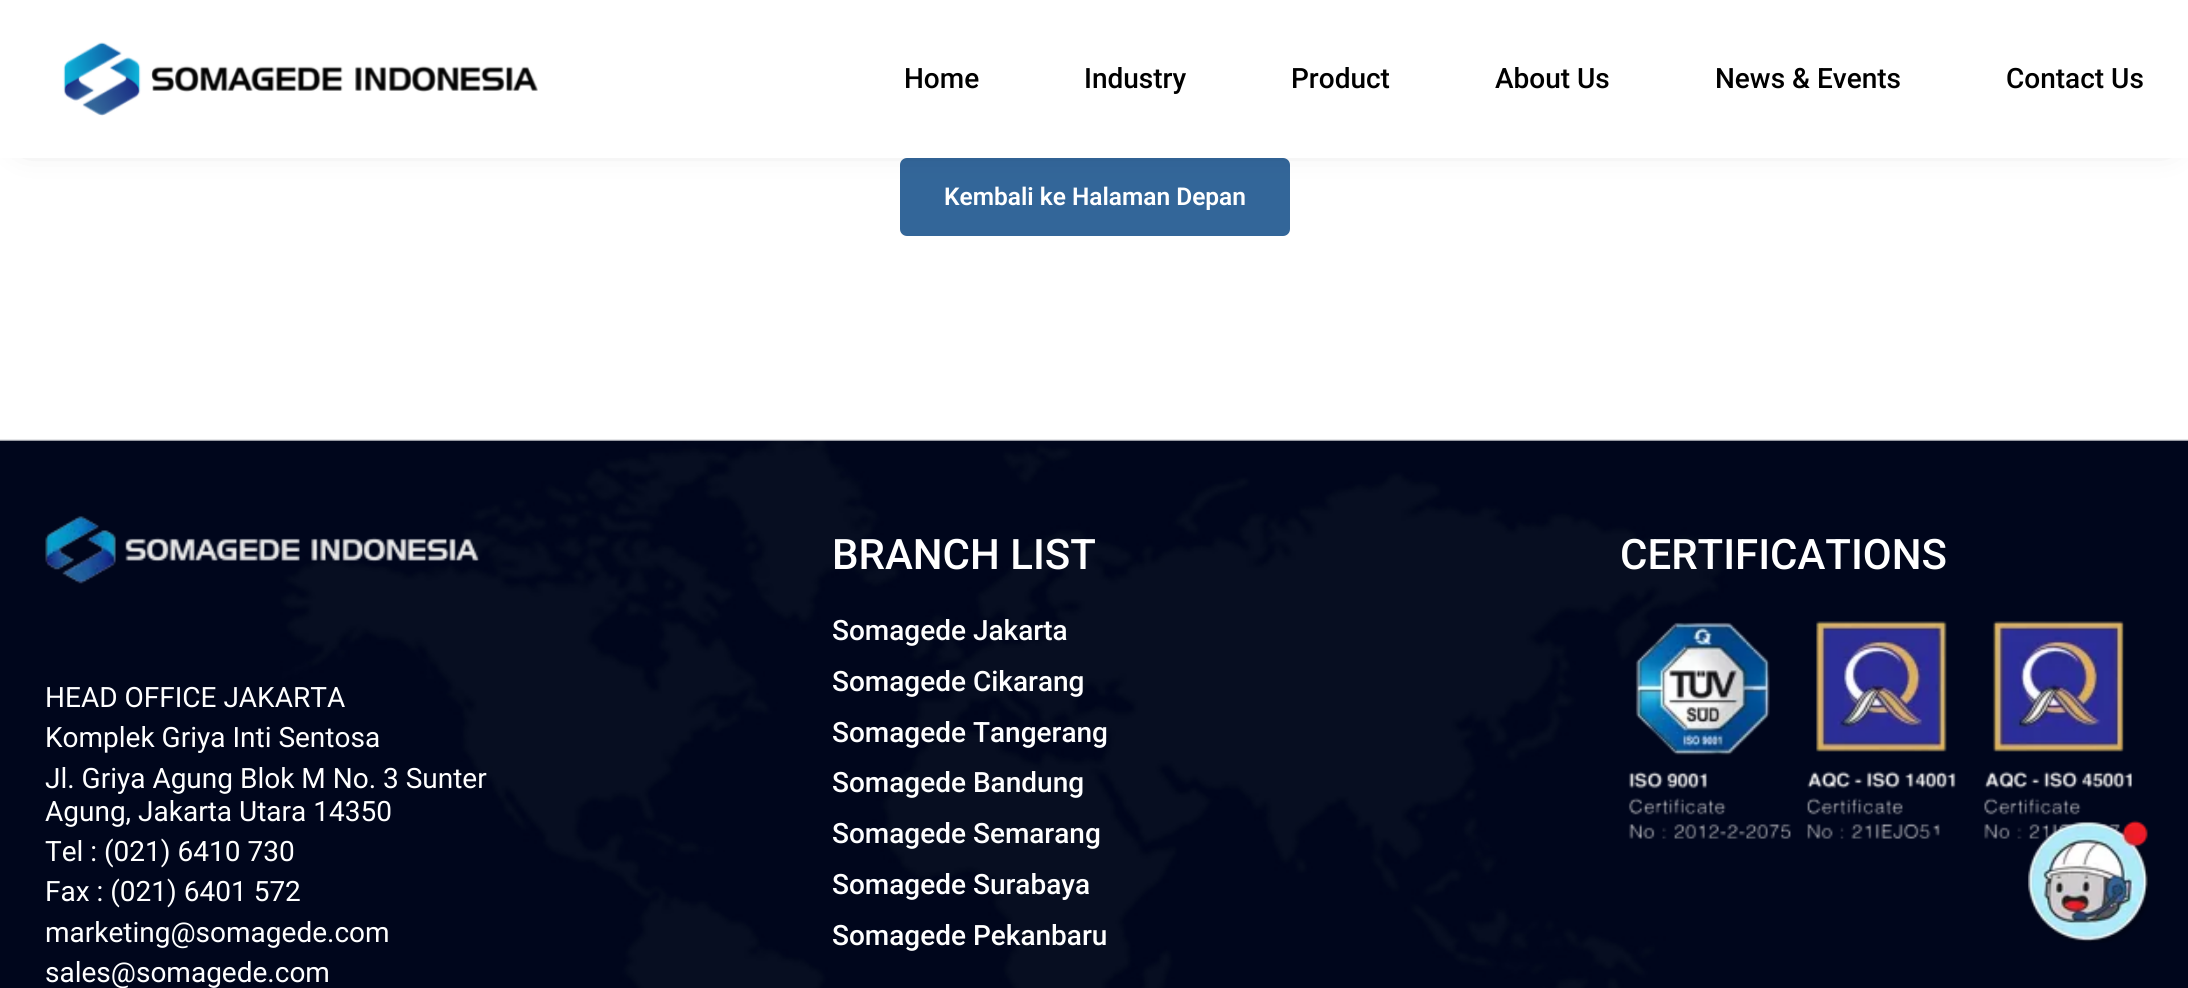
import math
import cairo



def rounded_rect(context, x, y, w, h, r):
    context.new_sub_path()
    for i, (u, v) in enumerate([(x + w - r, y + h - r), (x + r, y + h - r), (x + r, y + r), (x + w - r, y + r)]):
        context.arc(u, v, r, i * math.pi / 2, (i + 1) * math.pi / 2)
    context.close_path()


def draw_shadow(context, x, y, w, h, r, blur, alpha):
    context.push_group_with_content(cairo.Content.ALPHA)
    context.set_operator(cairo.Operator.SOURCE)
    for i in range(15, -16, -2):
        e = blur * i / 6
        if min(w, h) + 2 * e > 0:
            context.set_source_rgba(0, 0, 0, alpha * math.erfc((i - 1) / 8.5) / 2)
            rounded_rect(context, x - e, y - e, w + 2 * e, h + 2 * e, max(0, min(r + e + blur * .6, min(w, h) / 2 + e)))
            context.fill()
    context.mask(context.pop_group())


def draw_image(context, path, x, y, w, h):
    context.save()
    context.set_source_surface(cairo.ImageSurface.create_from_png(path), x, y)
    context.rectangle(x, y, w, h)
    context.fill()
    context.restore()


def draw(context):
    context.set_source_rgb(1, 1, 1)
    context.paint()
    context.set_source_rgb(51 / 255, 102 / 255, 153 / 255)
    rounded_rect(context, 901, 159, 388, 76, 6)
    context.fill_preserve()
    context.stroke()
    context.set_source_rgb(0, 0, 0)
    draw_shadow(context, 26, 26, 2141, 109, 0, 17.5, 0.4)
    context.set_source_rgb(1, 1, 1)
    context.rectangle(0, 0, 2188, 158)
    context.fill()
    draw_image(context, "images/1.png", 63, 42, 475, 74)
    draw_image(context, "images/2.png", 0, 439, 2188, 549)
    draw_image(context, "images/3.png", 1628, 621, 504, 218)
    draw_image(context, "images/4.png", 45, 516, 435, 68)
    draw_image(context, "images/5.png", 2028, 820, 122, 123)
    context.select_font_face("Roboto Medium")
    context.set_font_size(28)
    context.set_source_rgb(0, 0, 0)
    context.move_to(904, 88)
    context.show_text("Home")
    context.move_to(1084, 88)
    context.show_text("Industry")
    context.move_to(1291, 88)
    context.show_text("Product")
    context.move_to(1495, 88)
    context.show_text("About Us")
    context.move_to(1715, 88)
    context.show_text("News & Events")
    context.move_to(2006, 88)
    context.show_text("Contact Us")
    context.select_font_face("Roboto SemiBold")
    context.set_font_size(24.5)
    context.set_source_rgb(1, 1, 1)
    context.move_to(944, 205)
    context.show_text("Kembali ke Halaman Depan")
    context.select_font_face("Roboto Medium")
    context.set_font_size(42)
    context.move_to(832, 569)
    context.show_text("BRANCH LIST")
    context.set_font_size(28)
    context.move_to(832, 640)
    context.show_text("Somagede Jakarta")
    context.move_to(832, 691)
    context.show_text("Somagede Cikarang")
    context.move_to(832, 742)
    context.show_text("Somagede Tangerang")
    context.move_to(832, 792)
    context.show_text("Somagede Bandung")
    context.move_to(832, 843)
    context.show_text("Somagede Semarang")
    context.move_to(832, 894)
    context.show_text("Somagede Surabaya")
    context.move_to(832, 945)
    context.show_text("Somagede Pekanbaru")
    context.set_font_size(42)
    context.move_to(1620, 569)
    context.show_text("CERTIFICATIONS")
    context.select_font_face("Roboto")
    context.set_font_size(28)
    context.move_to(45, 707)
    context.show_text("HEAD OFFICE JAKARTA")
    context.move_to(45, 747)
    context.show_text("Komplek Griya Inti Sentosa")
    context.move_to(45, 788)
    context.show_text("Jl. Griya Agung Blok M No. 3 Sunter")
    context.move_to(45, 821)
    context.show_text("Agung, Jakarta Utara 14350")
    context.move_to(45, 861)
    context.show_text("Tel : (021) 6410 730")
    context.move_to(45, 901)
    context.show_text("Fax : (021) 6401 572")
    context.move_to(45, 942)
    context.show_text("marketing@somagede.com")
    context.move_to(45, 982)
    context.show_text("sales@somagede.com")


surface = cairo.ImageSurface(cairo.Format.RGB24, 2188, 988)
context = cairo.Context(surface)
options = cairo.FontOptions()
options.set_hint_metrics(cairo.HintMetrics.OFF)
options.set_hint_style(cairo.HintStyle.NONE)
context.set_font_options(options)
context.set_miter_limit(4)
draw(context)
surface.write_to_png("out.png")
